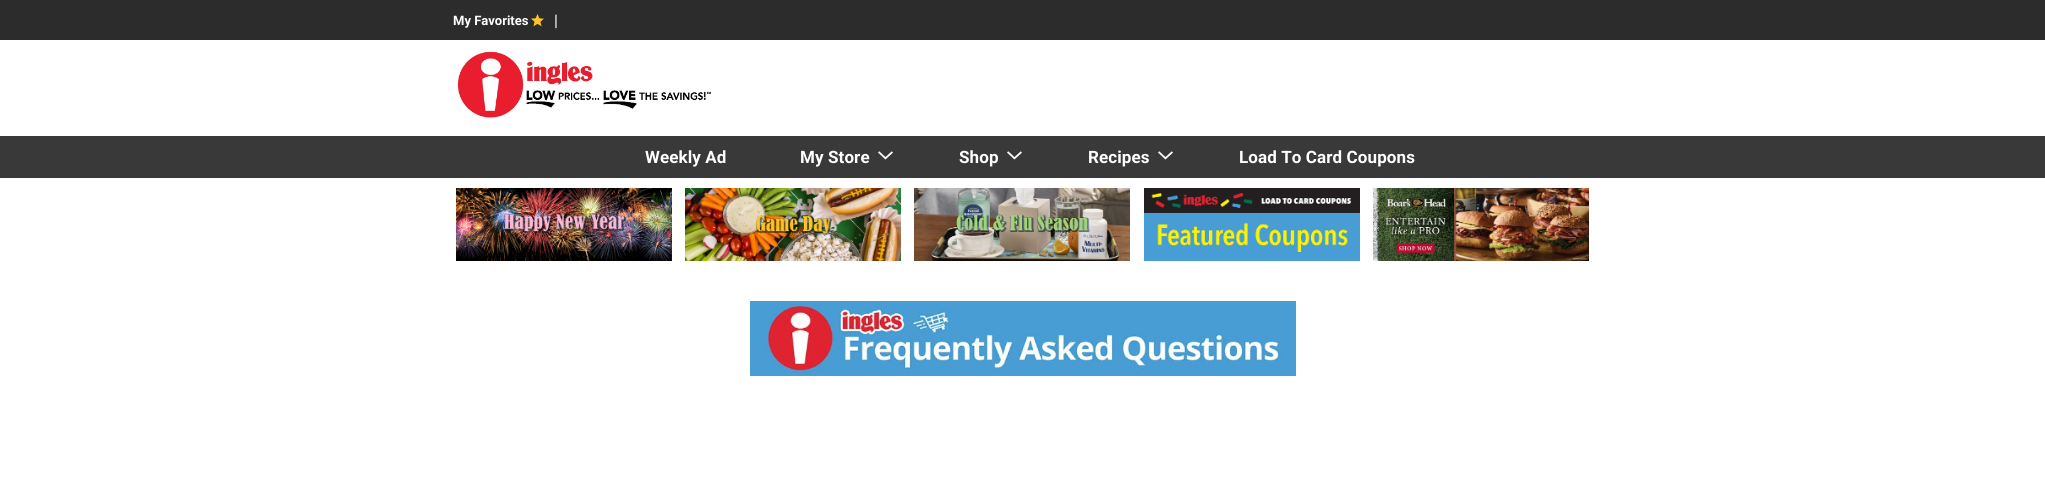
import math
import cairo



def draw_spaced(context, x, y, s, letter, word):
    context.move_to(x, y)
    for ch in s:
        context.show_text(ch)
        context.rel_move_to(letter + word * (ch == ' '), 0)


def draw_image(context, path, x, y, w, h):
    context.save()
    context.set_source_surface(cairo.ImageSurface.create_from_png(path), x, y)
    context.rectangle(x, y, w, h)
    context.fill()
    context.restore()


def draw(context):
    context.set_source_rgb(1, 1, 1)
    context.paint()
    context.set_source_rgb(44 / 255, 44 / 255, 44 / 255)
    context.rectangle(0, 0, 2045, 40)
    context.fill()
    draw_image(context, "images/1.png", 531, 14, 13, 13)
    draw_image(context, "images/2.png", 458, 50, 253, 68)
    context.set_source_rgb(57 / 255, 57 / 255, 57 / 255)
    context.rectangle(0, 136, 2045, 42)
    context.fill()
    draw_image(context, "images/3.png", 878, 151, 15, 9)
    draw_image(context, "images/3.png", 1007, 151, 15, 9)
    draw_image(context, "images/3.png", 1158, 151, 15, 9)
    draw_image(context, "images/4.png", 456, 188, 216, 73)
    draw_image(context, "images/5.png", 685, 188, 216, 73)
    draw_image(context, "images/6.png", 914, 188, 216, 73)
    draw_image(context, "images/7.png", 1144, 188, 216, 73)
    draw_image(context, "images/8.png", 1373, 188, 216, 73)
    draw_image(context, "images/9.png", 750, 301, 546, 75)
    context.select_font_face("Roboto", cairo.FontSlant.NORMAL, cairo.FontWeight.BOLD)
    context.set_font_size(13)
    context.set_source_rgb(1, 1, 1)
    context.move_to(453, 25)
    context.show_text("My Favorites")
    context.select_font_face("Roboto")
    context.set_font_size(16)
    context.move_to(554, 26)
    context.show_text("|")
    context.select_font_face("Roboto", cairo.FontSlant.NORMAL, cairo.FontWeight.BOLD)
    context.set_font_size(17)
    draw_spaced(context, 645, 163, "Weekly Ad", 0.1, 0)
    draw_spaced(context, 800, 163, "My Store", 0.1, 0)
    draw_spaced(context, 959, 163, "Shop", 0.1, 0)
    draw_spaced(context, 1088, 163, "Recipes", 0.1, 0)
    draw_spaced(context, 1239, 163, "Load To Card Coupons", 0.1, 0)


surface = cairo.ImageSurface(cairo.Format.RGB24, 2045, 488)
context = cairo.Context(surface)
options = cairo.FontOptions()
options.set_hint_metrics(cairo.HintMetrics.OFF)
options.set_hint_style(cairo.HintStyle.NONE)
context.set_font_options(options)
context.set_miter_limit(4)
draw(context)
surface.write_to_png("out.png")
